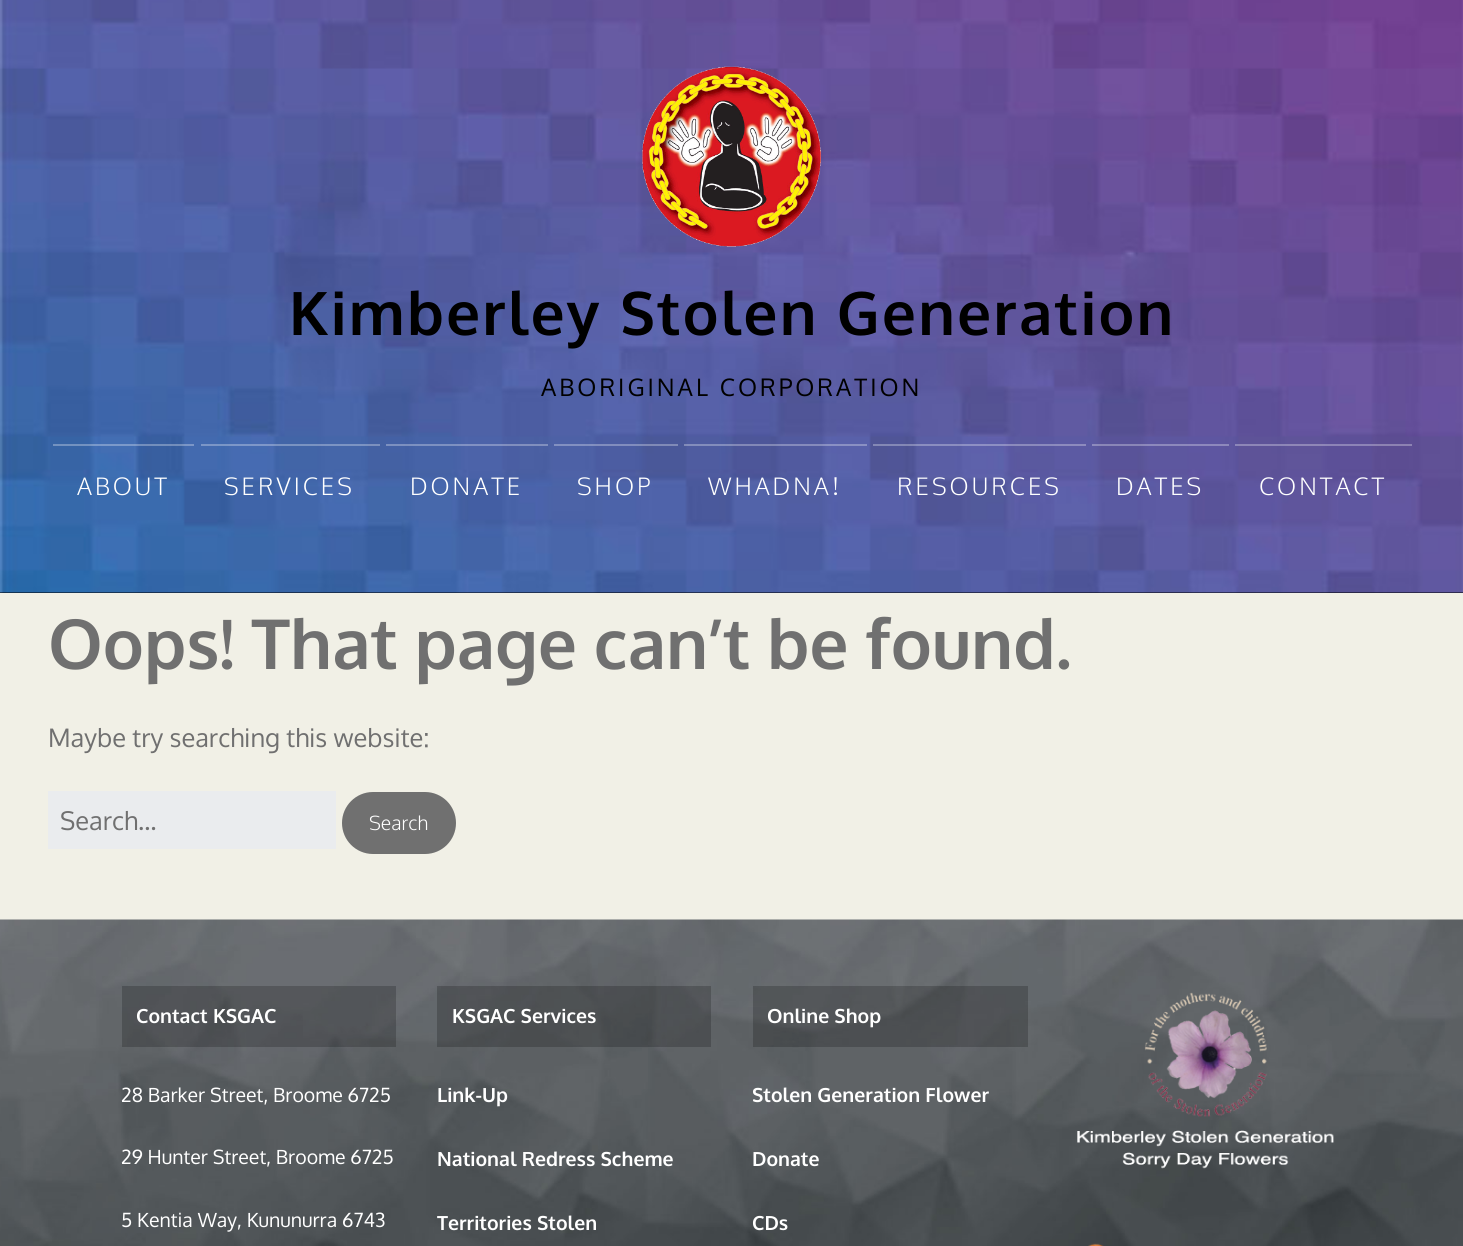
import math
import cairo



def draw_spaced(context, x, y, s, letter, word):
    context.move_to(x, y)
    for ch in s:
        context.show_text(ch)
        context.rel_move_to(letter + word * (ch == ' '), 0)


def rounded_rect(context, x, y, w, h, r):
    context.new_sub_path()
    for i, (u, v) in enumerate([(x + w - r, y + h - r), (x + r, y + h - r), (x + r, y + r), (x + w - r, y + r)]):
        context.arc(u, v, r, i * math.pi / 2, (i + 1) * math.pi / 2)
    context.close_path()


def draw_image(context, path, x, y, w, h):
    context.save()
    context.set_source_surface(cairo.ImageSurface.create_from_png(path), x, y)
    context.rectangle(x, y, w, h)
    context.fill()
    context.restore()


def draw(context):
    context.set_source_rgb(0, 0, 0)
    context.paint()
    draw_image(context, "images/1.png", 0, 0, 1463, 593)
    draw_image(context, "images/2.png", 642, 66, 179, 181)
    context.set_source_rgba(1, 1, 1, 0.3)
    context.rectangle(53, 444, 141, 2)
    context.fill()
    context.rectangle(201, 444, 179, 2)
    context.fill()
    context.rectangle(386, 444, 162, 2)
    context.fill()
    context.rectangle(554, 444, 124, 2)
    context.fill()
    context.rectangle(684, 444, 183, 2)
    context.fill()
    context.rectangle(873, 444, 213, 2)
    context.fill()
    context.rectangle(1092, 444, 137, 2)
    context.fill()
    context.rectangle(1235, 444, 177, 2)
    context.fill()
    context.set_source_rgb(241 / 255, 240 / 255, 230 / 255)
    context.rectangle(0, 593, 1463, 327)
    context.fill()
    context.set_source_rgb(234 / 255, 236 / 255, 238 / 255)
    context.rectangle(48, 791, 288, 58)
    context.fill()
    context.set_source_rgb(112 / 255, 112 / 255, 112 / 255)
    rounded_rect(context, 342, 792, 114, 62, 31)
    context.fill()
    draw_image(context, "images/3.png", 0, 919, 1463, 327)
    context.set_source_rgba(0, 0, 0, 0.2)
    context.rectangle(122, 986, 274, 61)
    context.fill()
    context.rectangle(437, 986, 274, 61)
    context.fill()
    context.rectangle(753, 986, 275, 61)
    context.fill()
    draw_image(context, "images/4.png", 1077, 992, 257, 177)
    draw_image(context, "images/5.png", 1088, 1243, 16, 3)
    context.select_font_face("Oxygen", cairo.FontSlant.NORMAL, cairo.FontWeight.BOLD)
    context.set_font_size(60)
    context.set_source_rgb(0, 0, 0)
    draw_spaced(context, 289, 335, "Kimberley Stolen Generation", 2.25, 0)
    context.select_font_face("Oxygen")
    context.set_font_size(24)
    draw_spaced(context, 541, 396, "ABORIGINAL CORPORATION", 3, 0)
    context.select_font_face("Oxygen Light")
    context.set_source_rgb(1, 1, 1)
    draw_spaced(context, 77, 495, "ABOUT", 3, 0)
    draw_spaced(context, 224, 495, "SERVICES", 3, 0)
    draw_spaced(context, 410, 495, "DONATE", 3, 0)
    draw_spaced(context, 577, 495, "SHOP", 3, 0)
    draw_spaced(context, 708, 495, "WHADNA!", 3, 0)
    draw_spaced(context, 897, 495, "RESOURCES", 3, 0)
    draw_spaced(context, 1116, 495, "DATES", 3, 0)
    draw_spaced(context, 1259, 495, "CONTACT", 3, 0)
    context.select_font_face("Oxygen", cairo.FontSlant.NORMAL, cairo.FontWeight.BOLD)
    context.set_font_size(69)
    context.set_source_rgb(112 / 255, 112 / 255, 112 / 255)
    draw_spaced(context, 48, 669, "Oops! That page can’t be found.", 0, -1.5)
    context.select_font_face("Oxygen")
    context.set_font_size(25.5)
    context.move_to(48, 747)
    context.show_text("Maybe try searching this website:")
    context.move_to(60, 830)
    context.show_text("Search…")
    context.select_font_face("Oxygen Light")
    context.set_font_size(19.5)
    context.set_source_rgb(1, 1, 1)
    context.move_to(369, 830)
    context.show_text("Search")
    context.select_font_face("Oxygen", cairo.FontSlant.NORMAL, cairo.FontWeight.BOLD)
    context.move_to(136, 1023)
    context.show_text("Contact KSGAC")
    context.select_font_face("Oxygen")
    context.move_to(121, 1102)
    context.show_text("28 Barker Street, Broome 6725")
    context.move_to(121, 1164)
    context.show_text("29 Hunter Street, Broome 6725")
    context.move_to(121, 1227)
    context.show_text("5 Kentia Way, Kununurra 6743")
    context.select_font_face("Oxygen", cairo.FontSlant.NORMAL, cairo.FontWeight.BOLD)
    context.move_to(452, 1023)
    context.show_text("KSGAC Services")
    context.move_to(437, 1102)
    context.show_text("Link-Up")
    context.move_to(437, 1166)
    context.show_text("National Redress Scheme")
    context.move_to(437, 1230)
    context.show_text("Territories Stolen")
    context.move_to(767, 1023)
    context.show_text("Online Shop")
    context.move_to(752, 1102)
    context.show_text("Stolen Generation Flower")
    context.move_to(752, 1166)
    context.show_text("Donate")
    context.move_to(752, 1230)
    context.show_text("CDs")


surface = cairo.ImageSurface(cairo.Format.RGB24, 1463, 1246)
context = cairo.Context(surface)
options = cairo.FontOptions()
options.set_hint_metrics(cairo.HintMetrics.OFF)
options.set_hint_style(cairo.HintStyle.NONE)
context.set_font_options(options)
context.set_miter_limit(4)
draw(context)
surface.write_to_png("out.png")
